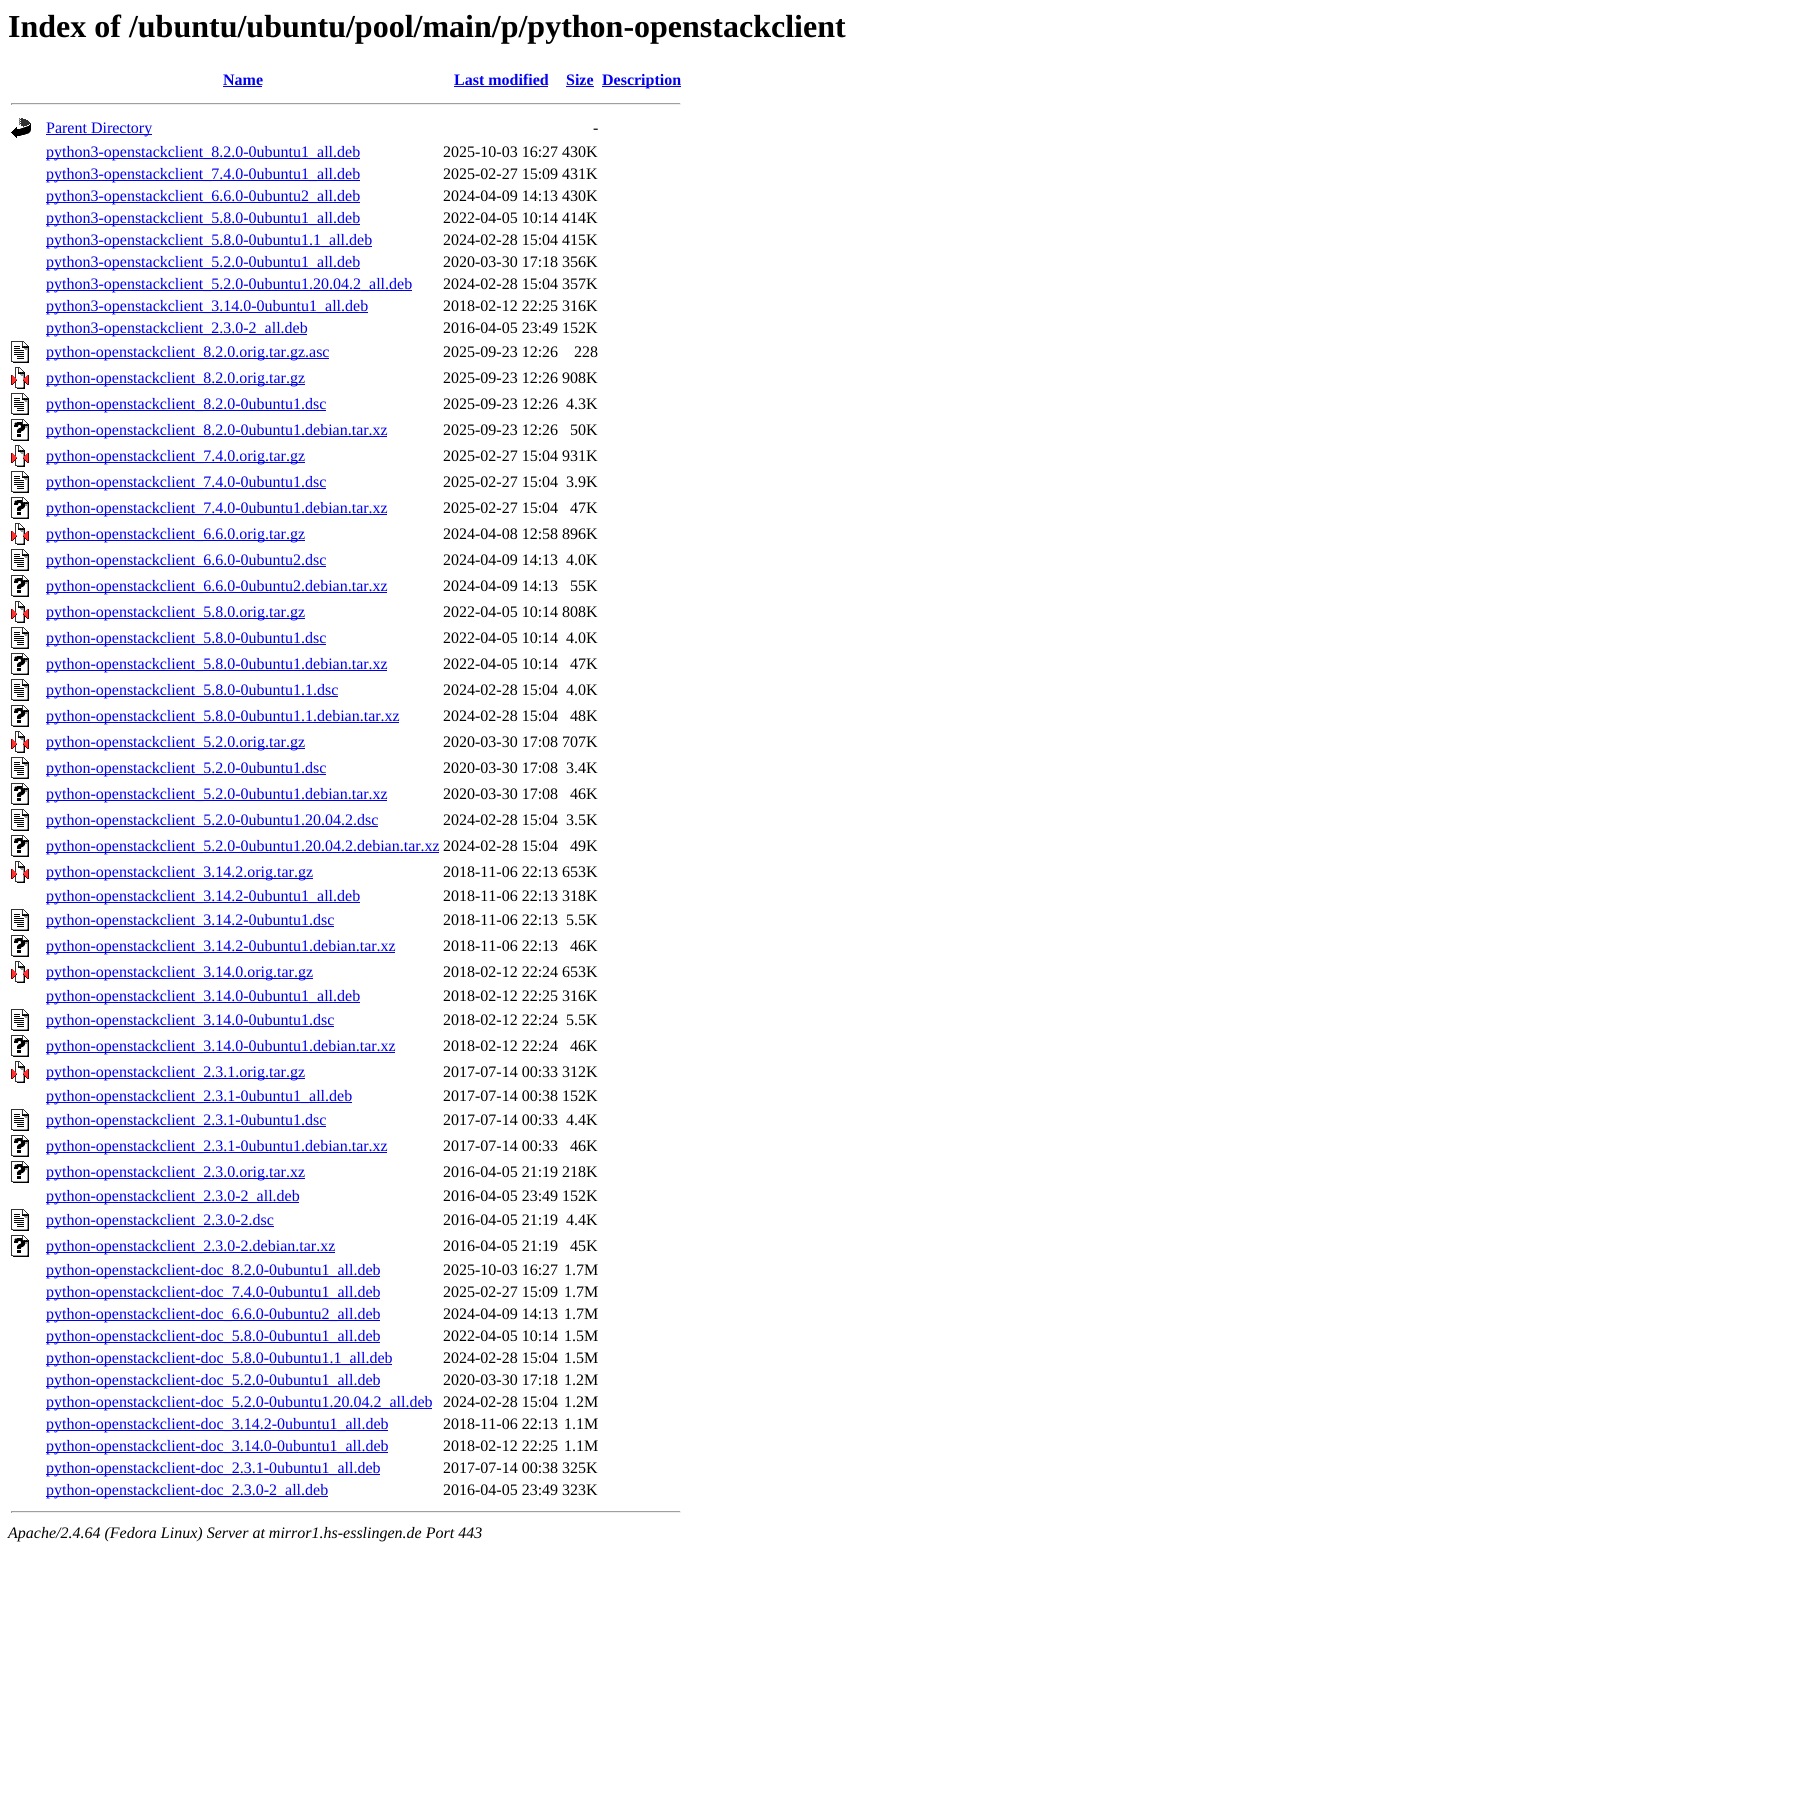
import math
import cairo



def draw_image(context, path, x, y, w, h):
    context.save()
    context.set_source_surface(cairo.ImageSurface.create_from_png(path), x, y)
    context.rectangle(x, y, w, h)
    context.fill()
    context.restore()


def draw(context):
    context.set_source_rgb(1, 1, 1)
    context.paint()
    context.set_source_rgb(0, 0, 238 / 255)
    context.rectangle(223, 86, 39, 1)
    context.fill()
    context.rectangle(454, 86, 94, 1)
    context.fill()
    context.rectangle(566, 86, 28, 1)
    context.fill()
    context.rectangle(602, 86, 79, 1)
    context.fill()
    context.set_source_rgb(159 / 255, 159 / 255, 159 / 255)
    context.rectangle(11, 103, 670, 1)
    context.fill()
    context.set_source_rgb(238 / 255, 238 / 255, 238 / 255)
    context.rectangle(680, 103, 1, 2)
    context.fill()
    context.rectangle(11, 104, 670, 1)
    context.fill()
    context.set_source_rgb(159 / 255, 159 / 255, 159 / 255)
    context.rectangle(11, 103, 1, 2)
    context.fill()
    draw_image(context, "images/1.png", 11, 118, 20, 20)
    context.set_source_rgb(0, 0, 238 / 255)
    context.rectangle(46, 134, 106, 1)
    context.fill()
    context.rectangle(46, 158, 314, 1)
    context.fill()
    context.rectangle(46, 180, 314, 1)
    context.fill()
    context.rectangle(46, 202, 314, 1)
    context.fill()
    context.rectangle(46, 224, 314, 1)
    context.fill()
    context.rectangle(46, 246, 326, 1)
    context.fill()
    context.rectangle(46, 268, 314, 1)
    context.fill()
    context.rectangle(46, 290, 366, 1)
    context.fill()
    context.rectangle(46, 312, 322, 1)
    context.fill()
    context.rectangle(46, 334, 261, 1)
    context.fill()
    draw_image(context, "images/2.png", 11, 341, 18, 22)
    context.rectangle(46, 358, 283, 1)
    context.fill()
    draw_image(context, "images/3.png", 11, 367, 18, 22)
    context.rectangle(46, 384, 259, 1)
    context.fill()
    draw_image(context, "images/2.png", 11, 393, 18, 22)
    context.rectangle(46, 410, 280, 1)
    context.fill()
    draw_image(context, "images/4.png", 11, 419, 18, 22)
    context.rectangle(46, 436, 341, 1)
    context.fill()
    draw_image(context, "images/3.png", 11, 445, 18, 22)
    context.rectangle(46, 462, 259, 1)
    context.fill()
    draw_image(context, "images/2.png", 11, 471, 18, 22)
    context.rectangle(46, 488, 280, 1)
    context.fill()
    draw_image(context, "images/4.png", 11, 497, 18, 22)
    context.rectangle(46, 514, 341, 1)
    context.fill()
    draw_image(context, "images/3.png", 11, 523, 18, 22)
    context.rectangle(46, 540, 259, 1)
    context.fill()
    draw_image(context, "images/2.png", 11, 549, 18, 22)
    context.rectangle(46, 566, 280, 1)
    context.fill()
    draw_image(context, "images/4.png", 11, 575, 18, 22)
    context.rectangle(46, 592, 341, 1)
    context.fill()
    draw_image(context, "images/3.png", 11, 601, 18, 22)
    context.rectangle(46, 618, 259, 1)
    context.fill()
    draw_image(context, "images/2.png", 11, 627, 18, 22)
    context.rectangle(46, 644, 280, 1)
    context.fill()
    draw_image(context, "images/4.png", 11, 653, 18, 22)
    context.rectangle(46, 670, 341, 1)
    context.fill()
    draw_image(context, "images/2.png", 11, 679, 18, 22)
    context.rectangle(46, 696, 292, 1)
    context.fill()
    draw_image(context, "images/4.png", 11, 705, 18, 22)
    context.rectangle(46, 722, 353, 1)
    context.fill()
    draw_image(context, "images/3.png", 11, 731, 18, 22)
    context.rectangle(46, 748, 259, 1)
    context.fill()
    draw_image(context, "images/2.png", 11, 757, 18, 22)
    context.rectangle(46, 774, 280, 1)
    context.fill()
    draw_image(context, "images/4.png", 11, 783, 18, 22)
    context.rectangle(46, 800, 341, 1)
    context.fill()
    draw_image(context, "images/2.png", 11, 809, 18, 22)
    context.rectangle(46, 826, 332, 1)
    context.fill()
    draw_image(context, "images/4.png", 11, 835, 18, 22)
    context.rectangle(46, 852, 393, 1)
    context.fill()
    draw_image(context, "images/3.png", 11, 861, 18, 22)
    context.rectangle(46, 878, 267, 1)
    context.fill()
    context.rectangle(46, 902, 314, 1)
    context.fill()
    draw_image(context, "images/2.png", 11, 909, 18, 22)
    context.rectangle(46, 926, 288, 1)
    context.fill()
    draw_image(context, "images/4.png", 11, 935, 18, 22)
    context.rectangle(46, 952, 349, 1)
    context.fill()
    draw_image(context, "images/3.png", 11, 961, 18, 22)
    context.rectangle(46, 978, 267, 1)
    context.fill()
    context.rectangle(46, 1002, 314, 1)
    context.fill()
    draw_image(context, "images/2.png", 11, 1009, 18, 22)
    context.rectangle(46, 1026, 288, 1)
    context.fill()
    draw_image(context, "images/4.png", 11, 1035, 18, 22)
    context.rectangle(46, 1052, 349, 1)
    context.fill()
    draw_image(context, "images/3.png", 11, 1061, 18, 22)
    context.rectangle(46, 1078, 259, 1)
    context.fill()
    context.rectangle(46, 1102, 306, 1)
    context.fill()
    draw_image(context, "images/2.png", 11, 1109, 18, 22)
    context.rectangle(46, 1126, 280, 1)
    context.fill()
    draw_image(context, "images/4.png", 11, 1135, 18, 22)
    context.rectangle(46, 1152, 341, 1)
    context.fill()
    draw_image(context, "images/4.png", 11, 1161, 18, 22)
    context.rectangle(46, 1178, 259, 1)
    context.fill()
    context.rectangle(46, 1202, 253, 1)
    context.fill()
    draw_image(context, "images/2.png", 11, 1209, 18, 22)
    context.rectangle(46, 1226, 228, 1)
    context.fill()
    draw_image(context, "images/4.png", 11, 1235, 18, 22)
    context.rectangle(46, 1252, 289, 1)
    context.fill()
    context.rectangle(46, 1276, 334, 1)
    context.fill()
    context.rectangle(46, 1298, 334, 1)
    context.fill()
    context.rectangle(46, 1320, 334, 1)
    context.fill()
    context.rectangle(46, 1342, 334, 1)
    context.fill()
    context.rectangle(46, 1364, 346, 1)
    context.fill()
    context.rectangle(46, 1386, 334, 1)
    context.fill()
    context.rectangle(46, 1408, 386, 1)
    context.fill()
    context.rectangle(46, 1430, 342, 1)
    context.fill()
    context.rectangle(46, 1452, 342, 1)
    context.fill()
    context.rectangle(46, 1474, 334, 1)
    context.fill()
    context.rectangle(46, 1496, 282, 1)
    context.fill()
    context.set_source_rgb(159 / 255, 159 / 255, 159 / 255)
    context.rectangle(11, 1511, 670, 1)
    context.fill()
    context.set_source_rgb(238 / 255, 238 / 255, 238 / 255)
    context.rectangle(680, 1511, 1, 2)
    context.fill()
    context.rectangle(11, 1512, 670, 1)
    context.fill()
    context.set_source_rgb(159 / 255, 159 / 255, 159 / 255)
    context.rectangle(11, 1511, 1, 2)
    context.fill()
    context.select_font_face("Liberation Serif", cairo.FontSlant.NORMAL, cairo.FontWeight.BOLD)
    context.set_font_size(32)
    context.set_source_rgb(0, 0, 0)
    context.move_to(8, 37)
    context.show_text("Index of /ubuntu/ubuntu/pool/main/p/python-openstackclient")
    context.set_font_size(16)
    context.set_source_rgb(0, 0, 238 / 255)
    context.move_to(223, 85)
    context.show_text("Name")
    context.move_to(454, 85)
    context.show_text("Last modified")
    context.move_to(566, 85)
    context.show_text("Size")
    context.move_to(602, 85)
    context.show_text("Description")
    context.select_font_face("Liberation Serif")
    context.move_to(46, 133)
    context.show_text("Parent Directory")
    context.set_source_rgb(0, 0, 0)
    context.move_to(593, 133)
    context.show_text("-")
    context.set_source_rgb(0, 0, 238 / 255)
    context.move_to(46, 157)
    context.show_text("python3-openstackclient_8.2.0-0ubuntu1_all.deb")
    context.set_source_rgb(0, 0, 0)
    context.move_to(443, 157)
    context.show_text("2025-10-03 16:27 430K")
    context.set_source_rgb(0, 0, 238 / 255)
    context.move_to(46, 179)
    context.show_text("python3-openstackclient_7.4.0-0ubuntu1_all.deb")
    context.set_source_rgb(0, 0, 0)
    context.move_to(443, 179)
    context.show_text("2025-02-27 15:09 431K")
    context.set_source_rgb(0, 0, 238 / 255)
    context.move_to(46, 201)
    context.show_text("python3-openstackclient_6.6.0-0ubuntu2_all.deb")
    context.set_source_rgb(0, 0, 0)
    context.move_to(443, 201)
    context.show_text("2024-04-09 14:13 430K")
    context.set_source_rgb(0, 0, 238 / 255)
    context.move_to(46, 223)
    context.show_text("python3-openstackclient_5.8.0-0ubuntu1_all.deb")
    context.set_source_rgb(0, 0, 0)
    context.move_to(443, 223)
    context.show_text("2022-04-05 10:14 414K")
    context.set_source_rgb(0, 0, 238 / 255)
    context.move_to(46, 245)
    context.show_text("python3-openstackclient_5.8.0-0ubuntu1.1_all.deb")
    context.set_source_rgb(0, 0, 0)
    context.move_to(443, 245)
    context.show_text("2024-02-28 15:04 415K")
    context.set_source_rgb(0, 0, 238 / 255)
    context.move_to(46, 267)
    context.show_text("python3-openstackclient_5.2.0-0ubuntu1_all.deb")
    context.set_source_rgb(0, 0, 0)
    context.move_to(443, 267)
    context.show_text("2020-03-30 17:18 356K")
    context.set_source_rgb(0, 0, 238 / 255)
    context.move_to(46, 289)
    context.show_text("python3-openstackclient_5.2.0-0ubuntu1.20.04.2_all.deb")
    context.set_source_rgb(0, 0, 0)
    context.move_to(443, 289)
    context.show_text("2024-02-28 15:04 357K")
    context.set_source_rgb(0, 0, 238 / 255)
    context.move_to(46, 311)
    context.show_text("python3-openstackclient_3.14.0-0ubuntu1_all.deb")
    context.set_source_rgb(0, 0, 0)
    context.move_to(443, 311)
    context.show_text("2018-02-12 22:25 316K")
    context.set_source_rgb(0, 0, 238 / 255)
    context.move_to(46, 333)
    context.show_text("python3-openstackclient_2.3.0-2_all.deb")
    context.set_source_rgb(0, 0, 0)
    context.move_to(443, 333)
    context.show_text("2016-04-05 23:49 152K")
    context.set_source_rgb(0, 0, 238 / 255)
    context.move_to(46, 357)
    context.show_text("python-openstackclient_8.2.0.orig.tar.gz.asc")
    context.set_source_rgb(0, 0, 0)
    context.move_to(443, 357)
    context.show_text("2025-09-23 12:26")
    context.move_to(574, 357)
    context.show_text("228")
    context.set_source_rgb(0, 0, 238 / 255)
    context.move_to(46, 383)
    context.show_text("python-openstackclient_8.2.0.orig.tar.gz")
    context.set_source_rgb(0, 0, 0)
    context.move_to(443, 383)
    context.show_text("2025-09-23 12:26 908K")
    context.set_source_rgb(0, 0, 238 / 255)
    context.move_to(46, 409)
    context.show_text("python-openstackclient_8.2.0-0ubuntu1.dsc")
    context.set_source_rgb(0, 0, 0)
    context.move_to(443, 409)
    context.show_text("2025-09-23 12:26")
    context.move_to(566, 409)
    context.show_text("4.3K")
    context.set_source_rgb(0, 0, 238 / 255)
    context.move_to(46, 435)
    context.show_text("python-openstackclient_8.2.0-0ubuntu1.debian.tar.xz")
    context.set_source_rgb(0, 0, 0)
    context.move_to(443, 435)
    context.show_text("2025-09-23 12:26")
    context.move_to(570, 435)
    context.show_text("50K")
    context.set_source_rgb(0, 0, 238 / 255)
    context.move_to(46, 461)
    context.show_text("python-openstackclient_7.4.0.orig.tar.gz")
    context.set_source_rgb(0, 0, 0)
    context.move_to(443, 461)
    context.show_text("2025-02-27 15:04 931K")
    context.set_source_rgb(0, 0, 238 / 255)
    context.move_to(46, 487)
    context.show_text("python-openstackclient_7.4.0-0ubuntu1.dsc")
    context.set_source_rgb(0, 0, 0)
    context.move_to(443, 487)
    context.show_text("2025-02-27 15:04")
    context.move_to(566, 487)
    context.show_text("3.9K")
    context.set_source_rgb(0, 0, 238 / 255)
    context.move_to(46, 513)
    context.show_text("python-openstackclient_7.4.0-0ubuntu1.debian.tar.xz")
    context.set_source_rgb(0, 0, 0)
    context.move_to(443, 513)
    context.show_text("2025-02-27 15:04")
    context.move_to(570, 513)
    context.show_text("47K")
    context.set_source_rgb(0, 0, 238 / 255)
    context.move_to(46, 539)
    context.show_text("python-openstackclient_6.6.0.orig.tar.gz")
    context.set_source_rgb(0, 0, 0)
    context.move_to(443, 539)
    context.show_text("2024-04-08 12:58 896K")
    context.set_source_rgb(0, 0, 238 / 255)
    context.move_to(46, 565)
    context.show_text("python-openstackclient_6.6.0-0ubuntu2.dsc")
    context.set_source_rgb(0, 0, 0)
    context.move_to(443, 565)
    context.show_text("2024-04-09 14:13")
    context.move_to(566, 565)
    context.show_text("4.0K")
    context.set_source_rgb(0, 0, 238 / 255)
    context.move_to(46, 591)
    context.show_text("python-openstackclient_6.6.0-0ubuntu2.debian.tar.xz")
    context.set_source_rgb(0, 0, 0)
    context.move_to(443, 591)
    context.show_text("2024-04-09 14:13")
    context.move_to(570, 591)
    context.show_text("55K")
    context.set_source_rgb(0, 0, 238 / 255)
    context.move_to(46, 617)
    context.show_text("python-openstackclient_5.8.0.orig.tar.gz")
    context.set_source_rgb(0, 0, 0)
    context.move_to(443, 617)
    context.show_text("2022-04-05 10:14 808K")
    context.set_source_rgb(0, 0, 238 / 255)
    context.move_to(46, 643)
    context.show_text("python-openstackclient_5.8.0-0ubuntu1.dsc")
    context.set_source_rgb(0, 0, 0)
    context.move_to(443, 643)
    context.show_text("2022-04-05 10:14")
    context.move_to(566, 643)
    context.show_text("4.0K")
    context.set_source_rgb(0, 0, 238 / 255)
    context.move_to(46, 669)
    context.show_text("python-openstackclient_5.8.0-0ubuntu1.debian.tar.xz")
    context.set_source_rgb(0, 0, 0)
    context.move_to(443, 669)
    context.show_text("2022-04-05 10:14")
    context.move_to(570, 669)
    context.show_text("47K")
    context.set_source_rgb(0, 0, 238 / 255)
    context.move_to(46, 695)
    context.show_text("python-openstackclient_5.8.0-0ubuntu1.1.dsc")
    context.set_source_rgb(0, 0, 0)
    context.move_to(443, 695)
    context.show_text("2024-02-28 15:04")
    context.move_to(566, 695)
    context.show_text("4.0K")
    context.set_source_rgb(0, 0, 238 / 255)
    context.move_to(46, 721)
    context.show_text("python-openstackclient_5.8.0-0ubuntu1.1.debian.tar.xz")
    context.set_source_rgb(0, 0, 0)
    context.move_to(443, 721)
    context.show_text("2024-02-28 15:04")
    context.move_to(570, 721)
    context.show_text("48K")
    context.set_source_rgb(0, 0, 238 / 255)
    context.move_to(46, 747)
    context.show_text("python-openstackclient_5.2.0.orig.tar.gz")
    context.set_source_rgb(0, 0, 0)
    context.move_to(443, 747)
    context.show_text("2020-03-30 17:08 707K")
    context.set_source_rgb(0, 0, 238 / 255)
    context.move_to(46, 773)
    context.show_text("python-openstackclient_5.2.0-0ubuntu1.dsc")
    context.set_source_rgb(0, 0, 0)
    context.move_to(443, 773)
    context.show_text("2020-03-30 17:08")
    context.move_to(566, 773)
    context.show_text("3.4K")
    context.set_source_rgb(0, 0, 238 / 255)
    context.move_to(46, 799)
    context.show_text("python-openstackclient_5.2.0-0ubuntu1.debian.tar.xz")
    context.set_source_rgb(0, 0, 0)
    context.move_to(443, 799)
    context.show_text("2020-03-30 17:08")
    context.move_to(570, 799)
    context.show_text("46K")
    context.set_source_rgb(0, 0, 238 / 255)
    context.move_to(46, 825)
    context.show_text("python-openstackclient_5.2.0-0ubuntu1.20.04.2.dsc")
    context.set_source_rgb(0, 0, 0)
    context.move_to(443, 825)
    context.show_text("2024-02-28 15:04")
    context.move_to(566, 825)
    context.show_text("3.5K")
    context.set_source_rgb(0, 0, 238 / 255)
    context.move_to(46, 851)
    context.show_text("python-openstackclient_5.2.0-0ubuntu1.20.04.2.debian.tar.xz")
    context.set_source_rgb(0, 0, 0)
    context.move_to(443, 851)
    context.show_text("2024-02-28 15:04")
    context.move_to(570, 851)
    context.show_text("49K")
    context.set_source_rgb(0, 0, 238 / 255)
    context.move_to(46, 877)
    context.show_text("python-openstackclient_3.14.2.orig.tar.gz")
    context.set_source_rgb(0, 0, 0)
    context.move_to(443, 877)
    context.show_text("2018-11-06 22:13 653K")
    context.set_source_rgb(0, 0, 238 / 255)
    context.move_to(46, 901)
    context.show_text("python-openstackclient_3.14.2-0ubuntu1_all.deb")
    context.set_source_rgb(0, 0, 0)
    context.move_to(443, 901)
    context.show_text("2018-11-06 22:13 318K")
    context.set_source_rgb(0, 0, 238 / 255)
    context.move_to(46, 925)
    context.show_text("python-openstackclient_3.14.2-0ubuntu1.dsc")
    context.set_source_rgb(0, 0, 0)
    context.move_to(443, 925)
    context.show_text("2018-11-06 22:13")
    context.move_to(566, 925)
    context.show_text("5.5K")
    context.set_source_rgb(0, 0, 238 / 255)
    context.move_to(46, 951)
    context.show_text("python-openstackclient_3.14.2-0ubuntu1.debian.tar.xz")
    context.set_source_rgb(0, 0, 0)
    context.move_to(443, 951)
    context.show_text("2018-11-06 22:13")
    context.move_to(570, 951)
    context.show_text("46K")
    context.set_source_rgb(0, 0, 238 / 255)
    context.move_to(46, 977)
    context.show_text("python-openstackclient_3.14.0.orig.tar.gz")
    context.set_source_rgb(0, 0, 0)
    context.move_to(443, 977)
    context.show_text("2018-02-12 22:24 653K")
    context.set_source_rgb(0, 0, 238 / 255)
    context.move_to(46, 1001)
    context.show_text("python-openstackclient_3.14.0-0ubuntu1_all.deb")
    context.set_source_rgb(0, 0, 0)
    context.move_to(443, 1001)
    context.show_text("2018-02-12 22:25 316K")
    context.set_source_rgb(0, 0, 238 / 255)
    context.move_to(46, 1025)
    context.show_text("python-openstackclient_3.14.0-0ubuntu1.dsc")
    context.set_source_rgb(0, 0, 0)
    context.move_to(443, 1025)
    context.show_text("2018-02-12 22:24")
    context.move_to(566, 1025)
    context.show_text("5.5K")
    context.set_source_rgb(0, 0, 238 / 255)
    context.move_to(46, 1051)
    context.show_text("python-openstackclient_3.14.0-0ubuntu1.debian.tar.xz")
    context.set_source_rgb(0, 0, 0)
    context.move_to(443, 1051)
    context.show_text("2018-02-12 22:24")
    context.move_to(570, 1051)
    context.show_text("46K")
    context.set_source_rgb(0, 0, 238 / 255)
    context.move_to(46, 1077)
    context.show_text("python-openstackclient_2.3.1.orig.tar.gz")
    context.set_source_rgb(0, 0, 0)
    context.move_to(443, 1077)
    context.show_text("2017-07-14 00:33 312K")
    context.set_source_rgb(0, 0, 238 / 255)
    context.move_to(46, 1101)
    context.show_text("python-openstackclient_2.3.1-0ubuntu1_all.deb")
    context.set_source_rgb(0, 0, 0)
    context.move_to(443, 1101)
    context.show_text("2017-07-14 00:38 152K")
    context.set_source_rgb(0, 0, 238 / 255)
    context.move_to(46, 1125)
    context.show_text("python-openstackclient_2.3.1-0ubuntu1.dsc")
    context.set_source_rgb(0, 0, 0)
    context.move_to(443, 1125)
    context.show_text("2017-07-14 00:33")
    context.move_to(566, 1125)
    context.show_text("4.4K")
    context.set_source_rgb(0, 0, 238 / 255)
    context.move_to(46, 1151)
    context.show_text("python-openstackclient_2.3.1-0ubuntu1.debian.tar.xz")
    context.set_source_rgb(0, 0, 0)
    context.move_to(443, 1151)
    context.show_text("2017-07-14 00:33")
    context.move_to(570, 1151)
    context.show_text("46K")
    context.set_source_rgb(0, 0, 238 / 255)
    context.move_to(46, 1177)
    context.show_text("python-openstackclient_2.3.0.orig.tar.xz")
    context.set_source_rgb(0, 0, 0)
    context.move_to(443, 1177)
    context.show_text("2016-04-05 21:19 218K")
    context.set_source_rgb(0, 0, 238 / 255)
    context.move_to(46, 1201)
    context.show_text("python-openstackclient_2.3.0-2_all.deb")
    context.set_source_rgb(0, 0, 0)
    context.move_to(443, 1201)
    context.show_text("2016-04-05 23:49 152K")
    context.set_source_rgb(0, 0, 238 / 255)
    context.move_to(46, 1225)
    context.show_text("python-openstackclient_2.3.0-2.dsc")
    context.set_source_rgb(0, 0, 0)
    context.move_to(443, 1225)
    context.show_text("2016-04-05 21:19")
    context.move_to(566, 1225)
    context.show_text("4.4K")
    context.set_source_rgb(0, 0, 238 / 255)
    context.move_to(46, 1251)
    context.show_text("python-openstackclient_2.3.0-2.debian.tar.xz")
    context.set_source_rgb(0, 0, 0)
    context.move_to(443, 1251)
    context.show_text("2016-04-05 21:19")
    context.move_to(570, 1251)
    context.show_text("45K")
    context.set_source_rgb(0, 0, 238 / 255)
    context.move_to(46, 1275)
    context.show_text("python-openstackclient-doc_8.2.0-0ubuntu1_all.deb")
    context.set_source_rgb(0, 0, 0)
    context.move_to(443, 1275)
    context.show_text("2025-10-03 16:27")
    context.move_to(564, 1275)
    context.show_text("1.7M")
    context.set_source_rgb(0, 0, 238 / 255)
    context.move_to(46, 1297)
    context.show_text("python-openstackclient-doc_7.4.0-0ubuntu1_all.deb")
    context.set_source_rgb(0, 0, 0)
    context.move_to(443, 1297)
    context.show_text("2025-02-27 15:09")
    context.move_to(564, 1297)
    context.show_text("1.7M")
    context.set_source_rgb(0, 0, 238 / 255)
    context.move_to(46, 1319)
    context.show_text("python-openstackclient-doc_6.6.0-0ubuntu2_all.deb")
    context.set_source_rgb(0, 0, 0)
    context.move_to(443, 1319)
    context.show_text("2024-04-09 14:13")
    context.move_to(564, 1319)
    context.show_text("1.7M")
    context.set_source_rgb(0, 0, 238 / 255)
    context.move_to(46, 1341)
    context.show_text("python-openstackclient-doc_5.8.0-0ubuntu1_all.deb")
    context.set_source_rgb(0, 0, 0)
    context.move_to(443, 1341)
    context.show_text("2022-04-05 10:14")
    context.move_to(564, 1341)
    context.show_text("1.5M")
    context.set_source_rgb(0, 0, 238 / 255)
    context.move_to(46, 1363)
    context.show_text("python-openstackclient-doc_5.8.0-0ubuntu1.1_all.deb")
    context.set_source_rgb(0, 0, 0)
    context.move_to(443, 1363)
    context.show_text("2024-02-28 15:04")
    context.move_to(564, 1363)
    context.show_text("1.5M")
    context.set_source_rgb(0, 0, 238 / 255)
    context.move_to(46, 1385)
    context.show_text("python-openstackclient-doc_5.2.0-0ubuntu1_all.deb")
    context.set_source_rgb(0, 0, 0)
    context.move_to(443, 1385)
    context.show_text("2020-03-30 17:18")
    context.move_to(564, 1385)
    context.show_text("1.2M")
    context.set_source_rgb(0, 0, 238 / 255)
    context.move_to(46, 1407)
    context.show_text("python-openstackclient-doc_5.2.0-0ubuntu1.20.04.2_all.deb")
    context.set_source_rgb(0, 0, 0)
    context.move_to(443, 1407)
    context.show_text("2024-02-28 15:04")
    context.move_to(564, 1407)
    context.show_text("1.2M")
    context.set_source_rgb(0, 0, 238 / 255)
    context.move_to(46, 1429)
    context.show_text("python-openstackclient-doc_3.14.2-0ubuntu1_all.deb")
    context.set_source_rgb(0, 0, 0)
    context.move_to(443, 1429)
    context.show_text("2018-11-06 22:13")
    context.move_to(564, 1429)
    context.show_text("1.1M")
    context.set_source_rgb(0, 0, 238 / 255)
    context.move_to(46, 1451)
    context.show_text("python-openstackclient-doc_3.14.0-0ubuntu1_all.deb")
    context.set_source_rgb(0, 0, 0)
    context.move_to(443, 1451)
    context.show_text("2018-02-12 22:25")
    context.move_to(564, 1451)
    context.show_text("1.1M")
    context.set_source_rgb(0, 0, 238 / 255)
    context.move_to(46, 1473)
    context.show_text("python-openstackclient-doc_2.3.1-0ubuntu1_all.deb")
    context.set_source_rgb(0, 0, 0)
    context.move_to(443, 1473)
    context.show_text("2017-07-14 00:38 325K")
    context.set_source_rgb(0, 0, 238 / 255)
    context.move_to(46, 1495)
    context.show_text("python-openstackclient-doc_2.3.0-2_all.deb")
    context.set_source_rgb(0, 0, 0)
    context.move_to(443, 1495)
    context.show_text("2016-04-05 23:49 323K")
    context.select_font_face("Liberation Serif", cairo.FontSlant.ITALIC)
    context.move_to(8, 1538)
    context.show_text("Apache/2.4.64 (Fedora Linux) Server at mirror1.hs-esslingen.de Port 443")


surface = cairo.ImageSurface(cairo.Format.RGB24, 1819, 1817)
context = cairo.Context(surface)
options = cairo.FontOptions()
options.set_hint_metrics(cairo.HintMetrics.OFF)
options.set_hint_style(cairo.HintStyle.NONE)
context.set_font_options(options)
context.set_miter_limit(4)
draw(context)
surface.write_to_png("out.png")
